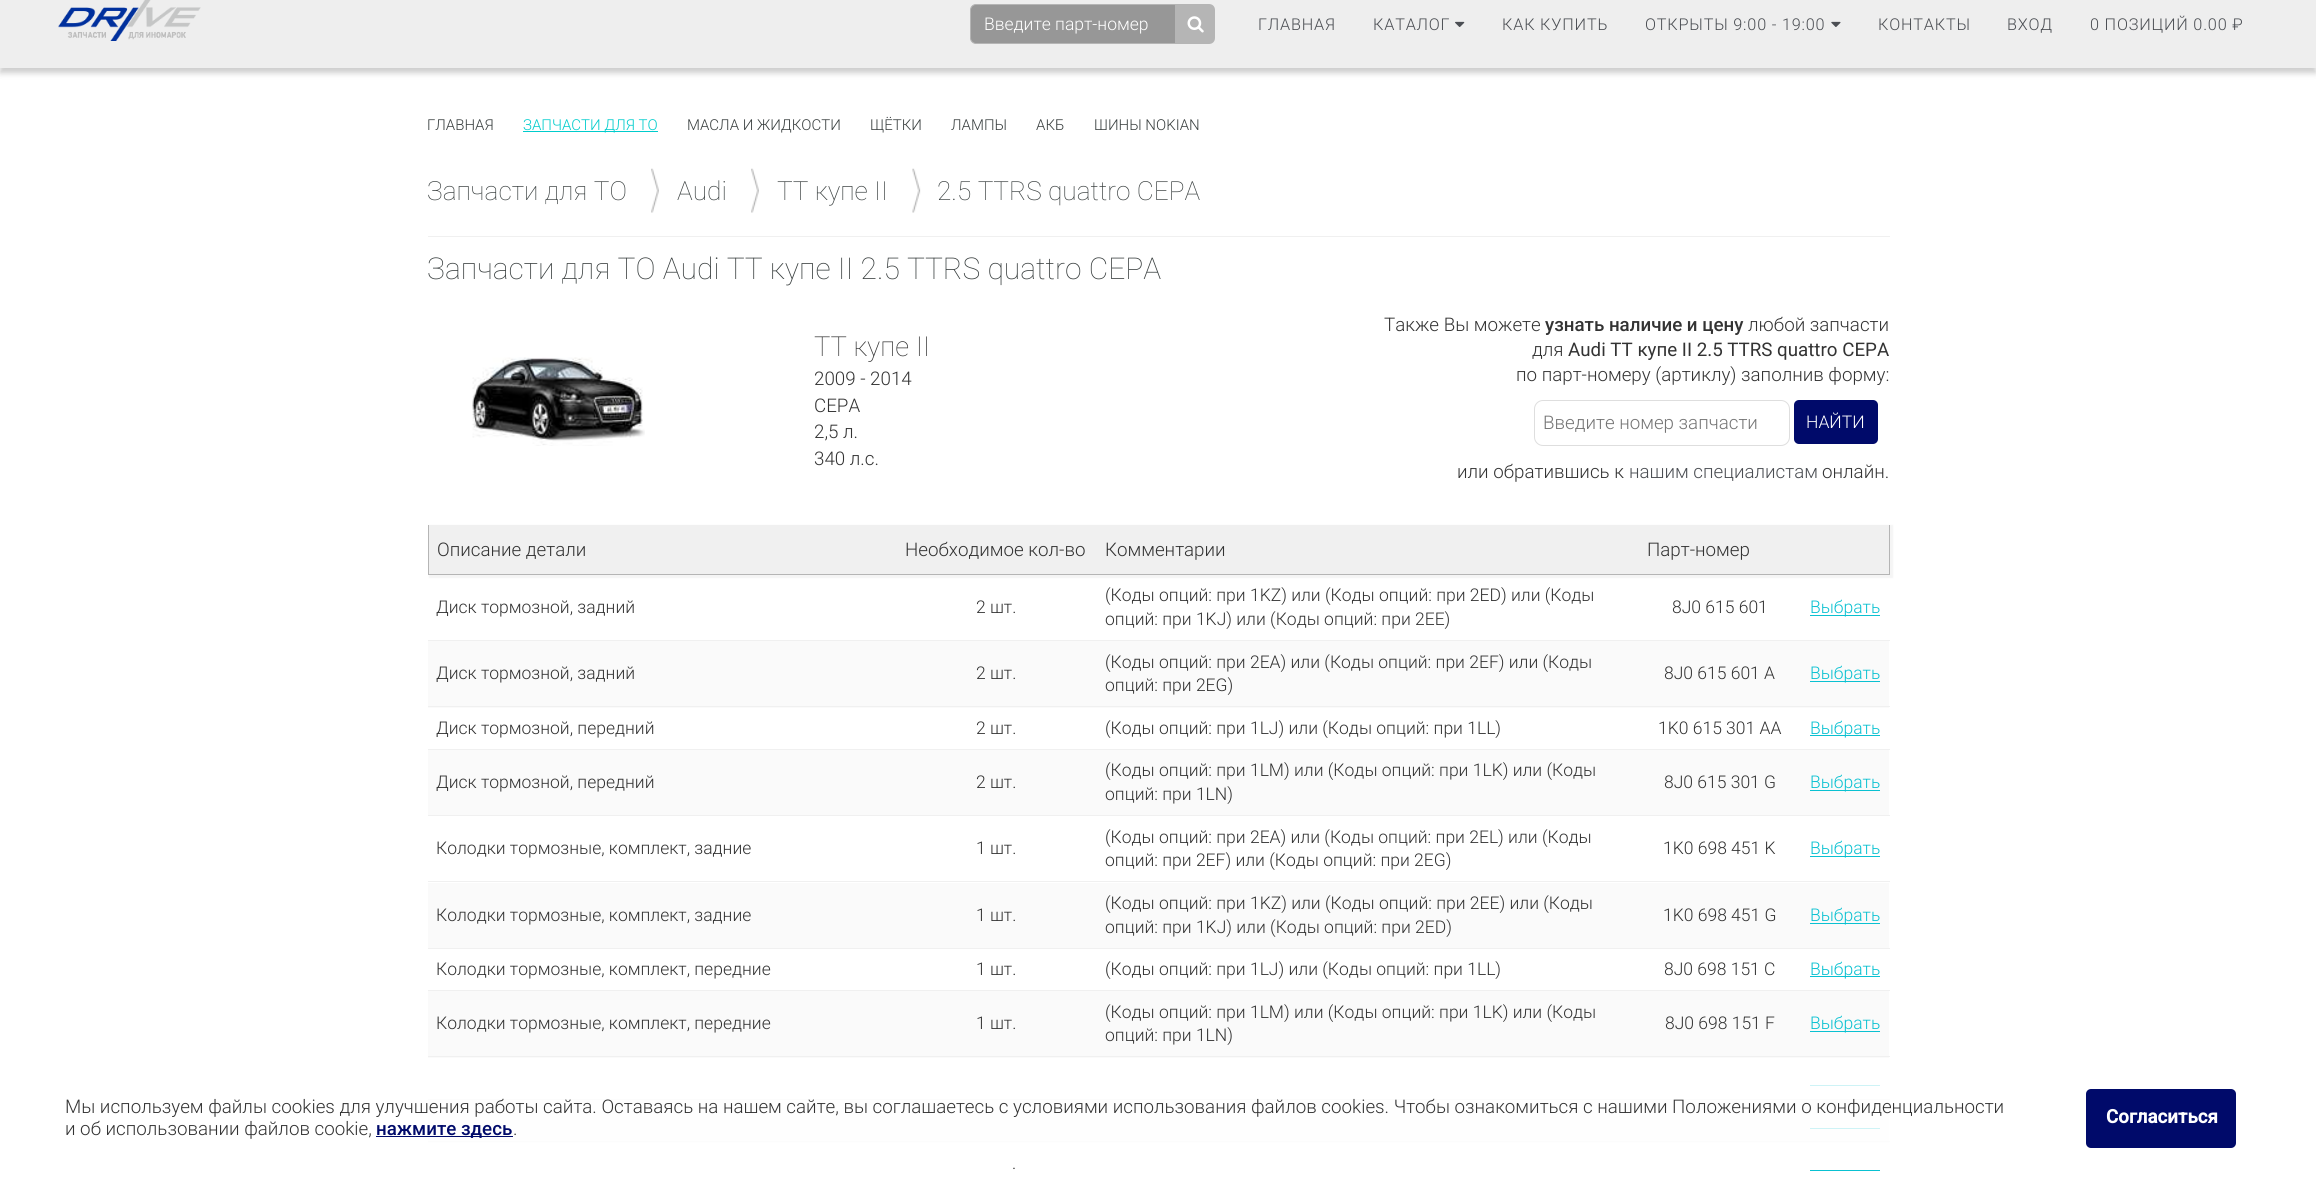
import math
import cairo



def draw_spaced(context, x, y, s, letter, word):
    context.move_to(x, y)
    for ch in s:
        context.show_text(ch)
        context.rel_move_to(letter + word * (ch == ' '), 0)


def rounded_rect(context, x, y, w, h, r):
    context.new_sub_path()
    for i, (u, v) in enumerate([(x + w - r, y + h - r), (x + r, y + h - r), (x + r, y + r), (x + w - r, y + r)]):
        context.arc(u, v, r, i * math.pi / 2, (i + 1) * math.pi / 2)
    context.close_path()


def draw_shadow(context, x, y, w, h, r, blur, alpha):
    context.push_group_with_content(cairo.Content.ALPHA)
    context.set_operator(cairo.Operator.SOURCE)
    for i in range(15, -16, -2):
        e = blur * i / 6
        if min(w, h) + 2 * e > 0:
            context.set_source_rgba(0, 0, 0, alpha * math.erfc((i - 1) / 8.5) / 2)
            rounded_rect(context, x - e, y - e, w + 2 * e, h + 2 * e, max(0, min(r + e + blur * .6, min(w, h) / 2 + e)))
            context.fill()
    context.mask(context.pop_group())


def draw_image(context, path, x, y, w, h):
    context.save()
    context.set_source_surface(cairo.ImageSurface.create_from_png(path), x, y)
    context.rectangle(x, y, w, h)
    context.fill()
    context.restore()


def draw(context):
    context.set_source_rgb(1, 1, 1)
    context.paint()
    context.set_source_rgb(0, 0, 0)
    draw_shadow(context, 0, -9, 2316, 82, 0, 3, 0.2)
    context.set_source_rgb(238 / 255, 238 / 255, 238 / 255)
    context.rectangle(0, 0, 2316, 68)
    context.fill()
    draw_image(context, "images/1.png", 58, 0, 143, 41)
    context.set_source_rgb(151 / 255, 151 / 255, 151 / 255)
    rounded_rect(context, 970.5, 4.5, 214, 39, 5.5)
    context.fill_preserve()
    context.set_source_rgb(181 / 255, 181 / 255, 181 / 255)
    context.set_line_width(1)
    context.stroke()
    context.new_path()
    context.move_to(1175, 4)
    context.line_to(1209, 4)
    context.curve_to(1212.5, 4, 1215, 6.5, 1215, 10)
    context.line_to(1215, 38)
    context.curve_to(1215, 41.5, 1212.5, 44, 1209, 44)
    context.line_to(1175, 44)
    context.close_path()
    context.fill()
    draw_image(context, "images/2.png", 1187, 16, 17, 17)
    draw_image(context, "images/3.png", 1455, 21, 10, 6)
    draw_image(context, "images/4.png", 1831, 21, 10, 6)
    context.set_source_rgb(0, 204 / 255, 204 / 255)
    context.rectangle(523, 131, 135, 1)
    context.fill()
    context.set_source_rgb(240 / 255, 240 / 255, 240 / 255)
    context.rectangle(428, 236, 1462, 1)
    context.fill()
    draw_image(context, "images/5.png", 651, 168, 8, 45)
    draw_image(context, "images/5.png", 751, 168, 8, 45)
    draw_image(context, "images/6.png", 912, 168, 9, 45)
    draw_image(context, "images/7.png", 472, 357, 173, 89)
    rounded_rect(context, 1534.5, 400.5, 255, 45, 8.5)
    context.set_source_rgb(222 / 255, 222 / 255, 222 / 255)
    context.stroke()
    context.set_source_rgb(0, 10 / 255, 106 / 255)
    rounded_rect(context, 1794, 400, 84, 44, 5)
    context.fill()
    context.set_source_rgb(245 / 255, 245 / 255, 245 / 255)
    draw_shadow(context, 429, 525, 1464, 53, 0, 0.5, 1)
    context.set_source_rgb(240 / 255, 240 / 255, 240 / 255)
    context.rectangle(429, 525, 1460, 49)
    context.fill()
    context.set_source_rgb(181 / 255, 181 / 255, 181 / 255)
    context.rectangle(1889, 525, 1, 50)
    context.fill()
    context.rectangle(428, 574, 1462, 1)
    context.fill()
    context.rectangle(428, 525, 1, 50)
    context.fill()
    context.set_source_rgb(10 / 255, 193 / 255, 209 / 255)
    context.rectangle(1810, 615, 70, 1)
    context.fill()
    context.set_source_rgb(250 / 255, 250 / 255, 250 / 255)
    context.rectangle(428, 641, 1461, 67)
    context.fill()
    context.set_source_rgb(240 / 255, 240 / 255, 240 / 255)
    context.rectangle(428, 640, 1462, 1)
    context.fill()
    context.set_source_rgb(10 / 255, 193 / 255, 209 / 255)
    context.rectangle(1810, 681, 70, 1)
    context.fill()
    context.set_source_rgb(240 / 255, 240 / 255, 240 / 255)
    context.rectangle(428, 706, 1462, 1)
    context.fill()
    context.set_source_rgb(10 / 255, 193 / 255, 209 / 255)
    context.rectangle(1810, 735, 70, 1)
    context.fill()
    context.set_source_rgb(250 / 255, 250 / 255, 250 / 255)
    context.rectangle(428, 750, 1461, 65)
    context.fill()
    context.set_source_rgb(240 / 255, 240 / 255, 240 / 255)
    context.rectangle(428, 749, 1462, 1)
    context.fill()
    context.set_source_rgb(10 / 255, 193 / 255, 209 / 255)
    context.rectangle(1810, 790, 70, 1)
    context.fill()
    context.set_source_rgb(240 / 255, 240 / 255, 240 / 255)
    context.rectangle(428, 815, 1462, 1)
    context.fill()
    context.set_source_rgb(10 / 255, 193 / 255, 209 / 255)
    context.rectangle(1810, 856, 70, 1)
    context.fill()
    context.set_source_rgb(250 / 255, 250 / 255, 250 / 255)
    context.rectangle(428, 883, 1461, 65)
    context.fill()
    context.set_source_rgb(240 / 255, 240 / 255, 240 / 255)
    context.rectangle(428, 881, 1462, 1)
    context.fill()
    context.set_source_rgb(10 / 255, 193 / 255, 209 / 255)
    context.rectangle(1810, 923, 70, 1)
    context.fill()
    context.set_source_rgb(240 / 255, 240 / 255, 240 / 255)
    context.rectangle(428, 948, 1462, 1)
    context.fill()
    context.set_source_rgb(10 / 255, 193 / 255, 209 / 255)
    context.rectangle(1810, 976, 70, 1)
    context.fill()
    context.set_source_rgb(250 / 255, 250 / 255, 250 / 255)
    context.rectangle(428, 991, 1461, 67)
    context.fill()
    context.set_source_rgb(240 / 255, 240 / 255, 240 / 255)
    context.rectangle(428, 990, 1462, 1)
    context.fill()
    context.set_source_rgb(10 / 255, 193 / 255, 209 / 255)
    context.rectangle(1810, 1031, 70, 1)
    context.fill()
    context.set_source_rgb(240 / 255, 240 / 255, 240 / 255)
    context.rectangle(428, 1056, 1462, 1)
    context.fill()
    context.set_source_rgb(10 / 255, 193 / 255, 209 / 255)
    context.rectangle(1810, 1085, 70, 1)
    context.fill()
    context.set_source_rgb(250 / 255, 250 / 255, 250 / 255)
    context.rectangle(428, 1100, 1461, 43)
    context.fill()
    context.set_source_rgb(240 / 255, 240 / 255, 240 / 255)
    context.rectangle(428, 1099, 1462, 1)
    context.fill()
    context.set_source_rgb(10 / 255, 193 / 255, 209 / 255)
    context.rectangle(1810, 1128, 70, 1)
    context.fill()
    context.set_source_rgb(240 / 255, 240 / 255, 240 / 255)
    context.rectangle(428, 1141, 1462, 1)
    context.fill()
    context.set_source_rgb(10 / 255, 193 / 255, 209 / 255)
    context.rectangle(1810, 1170, 70, 1)
    context.fill()
    context.set_source_rgba(1, 1, 1, 0.8)
    rounded_rect(context, 40, 1070, 2236, 96, 5)
    context.fill()
    context.set_source_rgb(0, 10 / 255, 106 / 255)
    context.rectangle(376, 1136, 137, 1)
    context.fill()
    rounded_rect(context, 2086, 1089, 150, 59, 5)
    context.fill()
    context.select_font_face("Roboto Light")
    context.set_font_size(17.5)
    context.set_source_rgb(1, 1, 1)
    context.move_to(984, 30)
    context.show_text("Введите парт-номер")
    context.set_font_size(16.25)
    context.set_source_rgb(75 / 255, 78 / 255, 83 / 255)
    draw_spaced(context, 1258, 30, "ГЛАВНАЯ", 0.8, 0)
    draw_spaced(context, 1373, 30, "КАТАЛОГ", 0.8, 0)
    draw_spaced(context, 1502, 30, "КАК КУПИТЬ", 0.8, 0)
    draw_spaced(context, 1645, 30, "ОТКРЫТЫ 9:00 - 19:00", 0.8, 0)
    draw_spaced(context, 1878, 30, "КОНТАКТЫ", 0.8, 0)
    draw_spaced(context, 2007, 30, "ВХОД", 0.8, 0)
    draw_spaced(context, 2090, 30, "0 ПОЗИЦИЙ 0.00 ₽", 0.8, 0)
    context.set_font_size(15)
    context.set_source_rgb(57 / 255, 63 / 255, 63 / 255)
    context.move_to(427, 130)
    context.show_text("ГЛАВНАЯ")
    context.set_source_rgb(0, 204 / 255, 204 / 255)
    context.move_to(523, 130)
    context.show_text("ЗАПЧАСТИ ДЛЯ ТО")
    context.set_source_rgb(57 / 255, 63 / 255, 63 / 255)
    context.move_to(687, 130)
    context.show_text("МАСЛА И ЖИДКОСТИ")
    context.move_to(870, 130)
    context.show_text("ЩЁТКИ")
    context.move_to(951, 130)
    context.show_text("ЛАМПЫ")
    context.move_to(1036, 130)
    context.show_text("АКБ")
    context.move_to(1094, 130)
    context.show_text("ШИНЫ NOKIAN")
    context.select_font_face("Roboto Thin")
    context.set_font_size(26.25)
    context.move_to(427, 200)
    context.show_text("Запчасти для ТО")
    context.move_to(677, 200)
    context.show_text("Audi")
    context.move_to(777, 200)
    context.show_text("TT купе II")
    context.move_to(937, 200)
    context.show_text("2.5 TTRS quattro CEPA")
    context.set_font_size(30)
    context.move_to(427, 279)
    context.show_text("Запчасти для ТО Audi TT купе II 2.5 TTRS quattro CEPA")
    context.set_font_size(27.5)
    context.set_source_rgb(51 / 255, 51 / 255, 51 / 255)
    context.move_to(814, 356)
    context.show_text("TT купе II")
    context.select_font_face("Roboto Light")
    context.set_font_size(18.75)
    context.move_to(814, 385)
    context.show_text("2009 - 2014")
    context.move_to(814, 412)
    context.show_text("CEPA")
    context.move_to(814, 438)
    context.show_text("2,5 л.")
    context.move_to(814, 465)
    context.show_text("340 л.с.")
    context.move_to(1384, 331)
    context.show_text("Также Вы можете")
    context.select_font_face("Roboto Medium")
    context.move_to(1545, 331)
    context.show_text("узнать наличие и цену")
    context.select_font_face("Roboto Light")
    context.move_to(1748, 331)
    context.show_text("любой запчасти")
    context.move_to(1532, 356)
    context.show_text("для")
    context.select_font_face("Roboto")
    context.move_to(1568, 356)
    context.show_text("Audi TT купе II 2.5 TTRS quattro CEPA")
    context.select_font_face("Roboto Light")
    context.move_to(1516, 381)
    context.show_text("по парт-номеру (артиклу) заполнив форму:")
    context.set_source_rgb(117 / 255, 117 / 255, 117 / 255)
    context.move_to(1543, 429)
    context.show_text("Введите номер запчасти")
    context.set_font_size(17.5)
    context.set_source_rgb(1, 1, 1)
    context.move_to(1806, 428)
    context.show_text("НАЙТИ")
    context.set_font_size(18.75)
    context.set_source_rgb(51 / 255, 51 / 255, 51 / 255)
    context.move_to(1457, 478)
    context.show_text("или обратившись к")
    context.set_source_rgb(75 / 255, 78 / 255, 83 / 255)
    context.move_to(1629, 478)
    context.show_text("нашим специалистам")
    context.set_source_rgb(51 / 255, 51 / 255, 51 / 255)
    context.move_to(1822, 478)
    context.show_text("онлайн.")
    context.move_to(437, 556)
    context.show_text("Описание детали")
    context.move_to(905, 556)
    context.show_text("Необходимое кол-во")
    context.move_to(1105, 556)
    context.show_text("Комментарии")
    context.move_to(1647, 556)
    context.show_text("Парт-номер")
    context.set_font_size(17.5)
    context.move_to(436, 613)
    context.show_text("Диск тормозной, задний")
    context.move_to(976, 613)
    context.show_text("2 шт.")
    context.move_to(1105, 601)
    context.show_text("(Коды опций: при 1KZ) или (Коды опций: при 2ED) или (Коды")
    context.move_to(1105, 625)
    context.show_text("опций: при 1KJ) или (Коды опций: при 2EE)")
    context.move_to(1672, 613)
    context.show_text("8J0 615 601")
    context.set_source_rgb(10 / 255, 193 / 255, 209 / 255)
    context.move_to(1810, 613)
    context.show_text("Выбрать")
    context.set_source_rgb(51 / 255, 51 / 255, 51 / 255)
    context.move_to(436, 679)
    context.show_text("Диск тормозной, задний")
    context.move_to(976, 679)
    context.show_text("2 шт.")
    context.move_to(1105, 668)
    context.show_text("(Коды опций: при 2EA) или (Коды опций: при 2EF) или (Коды")
    context.move_to(1105, 691)
    context.show_text("опций: при 2EG)")
    context.move_to(1664, 679)
    context.show_text("8J0 615 601 A")
    context.set_source_rgb(10 / 255, 193 / 255, 209 / 255)
    context.move_to(1810, 679)
    context.show_text("Выбрать")
    context.set_source_rgb(51 / 255, 51 / 255, 51 / 255)
    context.move_to(436, 734)
    context.show_text("Диск тормозной, передний")
    context.move_to(976, 734)
    context.show_text("2 шт.")
    context.move_to(1105, 734)
    context.show_text("(Коды опций: при 1LJ) или (Коды опций: при 1LL)")
    context.move_to(1658, 734)
    context.show_text("1K0 615 301 AA")
    context.set_source_rgb(10 / 255, 193 / 255, 209 / 255)
    context.move_to(1810, 734)
    context.show_text("Выбрать")
    context.set_source_rgb(51 / 255, 51 / 255, 51 / 255)
    context.move_to(436, 788)
    context.show_text("Диск тормозной, передний")
    context.move_to(976, 788)
    context.show_text("2 шт.")
    context.move_to(1105, 776)
    context.show_text("(Коды опций: при 1LM) или (Коды опций: при 1LK) или (Коды")
    context.move_to(1105, 800)
    context.show_text("опций: при 1LN)")
    context.move_to(1664, 788)
    context.show_text("8J0 615 301 G")
    context.set_source_rgb(10 / 255, 193 / 255, 209 / 255)
    context.move_to(1810, 788)
    context.show_text("Выбрать")
    context.set_source_rgb(51 / 255, 51 / 255, 51 / 255)
    context.move_to(436, 854)
    context.show_text("Колодки тормозные, комплект, задние")
    context.move_to(976, 854)
    context.show_text("1 шт.")
    context.move_to(1105, 843)
    context.show_text("(Коды опций: при 2EA) или (Коды опций: при 2EL) или (Коды")
    context.move_to(1105, 866)
    context.show_text("опций: при 2EF) или (Коды опций: при 2EG)")
    context.move_to(1663, 854)
    context.show_text("1K0 698 451 K")
    context.set_source_rgb(10 / 255, 193 / 255, 209 / 255)
    context.move_to(1810, 854)
    context.show_text("Выбрать")
    context.set_source_rgb(51 / 255, 51 / 255, 51 / 255)
    context.move_to(436, 921)
    context.show_text("Колодки тормозные, комплект, задние")
    context.move_to(976, 921)
    context.show_text("1 шт.")
    context.move_to(1105, 909)
    context.show_text("(Коды опций: при 1KZ) или (Коды опций: при 2EE) или (Коды")
    context.move_to(1105, 933)
    context.show_text("опций: при 1KJ) или (Коды опций: при 2ED)")
    context.move_to(1663, 921)
    context.show_text("1K0 698 451 G")
    context.set_source_rgb(10 / 255, 193 / 255, 209 / 255)
    context.move_to(1810, 921)
    context.show_text("Выбрать")
    context.set_source_rgb(51 / 255, 51 / 255, 51 / 255)
    context.move_to(436, 975)
    context.show_text("Колодки тормозные, комплект, передние")
    context.move_to(976, 975)
    context.show_text("1 шт.")
    context.move_to(1105, 975)
    context.show_text("(Коды опций: при 1LJ) или (Коды опций: при 1LL)")
    context.move_to(1664, 975)
    context.show_text("8J0 698 151 C")
    context.set_source_rgb(10 / 255, 193 / 255, 209 / 255)
    context.move_to(1810, 975)
    context.show_text("Выбрать")
    context.set_source_rgb(51 / 255, 51 / 255, 51 / 255)
    context.move_to(436, 1029)
    context.show_text("Колодки тормозные, комплект, передние")
    context.move_to(976, 1029)
    context.show_text("1 шт.")
    context.move_to(1105, 1018)
    context.show_text("(Коды опций: при 1LM) или (Коды опций: при 1LK) или (Коды")
    context.move_to(1105, 1041)
    context.show_text("опций: при 1LN)")
    context.move_to(1665, 1029)
    context.show_text("8J0 698 151 F")
    context.set_source_rgb(10 / 255, 193 / 255, 209 / 255)
    context.move_to(1810, 1029)
    context.show_text("Выбрать")
    context.set_source_rgb(51 / 255, 51 / 255, 51 / 255)
    context.move_to(1012, 1169)
    context.show_text(".")
    context.set_font_size(18.75)
    context.move_to(65, 1113)
    context.show_text("Мы используем файлы cookies для улучшения работы сайта. Оставаясь на нашем сайте, вы соглашаетесь с условиями использования файлов cookies. Чтобы ознакомиться с нашими Положениями о конфиденциальности")
    context.move_to(65, 1135)
    context.show_text("и об использовании файлов cookie,")
    context.select_font_face("Roboto Medium")
    context.set_source_rgb(0, 10 / 255, 106 / 255)
    context.move_to(376, 1135)
    context.show_text("нажмите здесь")
    context.select_font_face("Roboto Light")
    context.set_source_rgb(51 / 255, 51 / 255, 51 / 255)
    context.move_to(513, 1135)
    context.show_text(".")
    context.select_font_face("Roboto", cairo.FontSlant.NORMAL, cairo.FontWeight.BOLD)
    context.set_source_rgb(1, 1, 1)
    context.move_to(2106, 1123)
    context.show_text("Согласиться")


surface = cairo.ImageSurface(cairo.Format.RGB24, 2316, 1178)
context = cairo.Context(surface)
options = cairo.FontOptions()
options.set_hint_metrics(cairo.HintMetrics.OFF)
options.set_hint_style(cairo.HintStyle.NONE)
context.set_font_options(options)
context.set_miter_limit(4)
draw(context)
surface.write_to_png("out.png")
